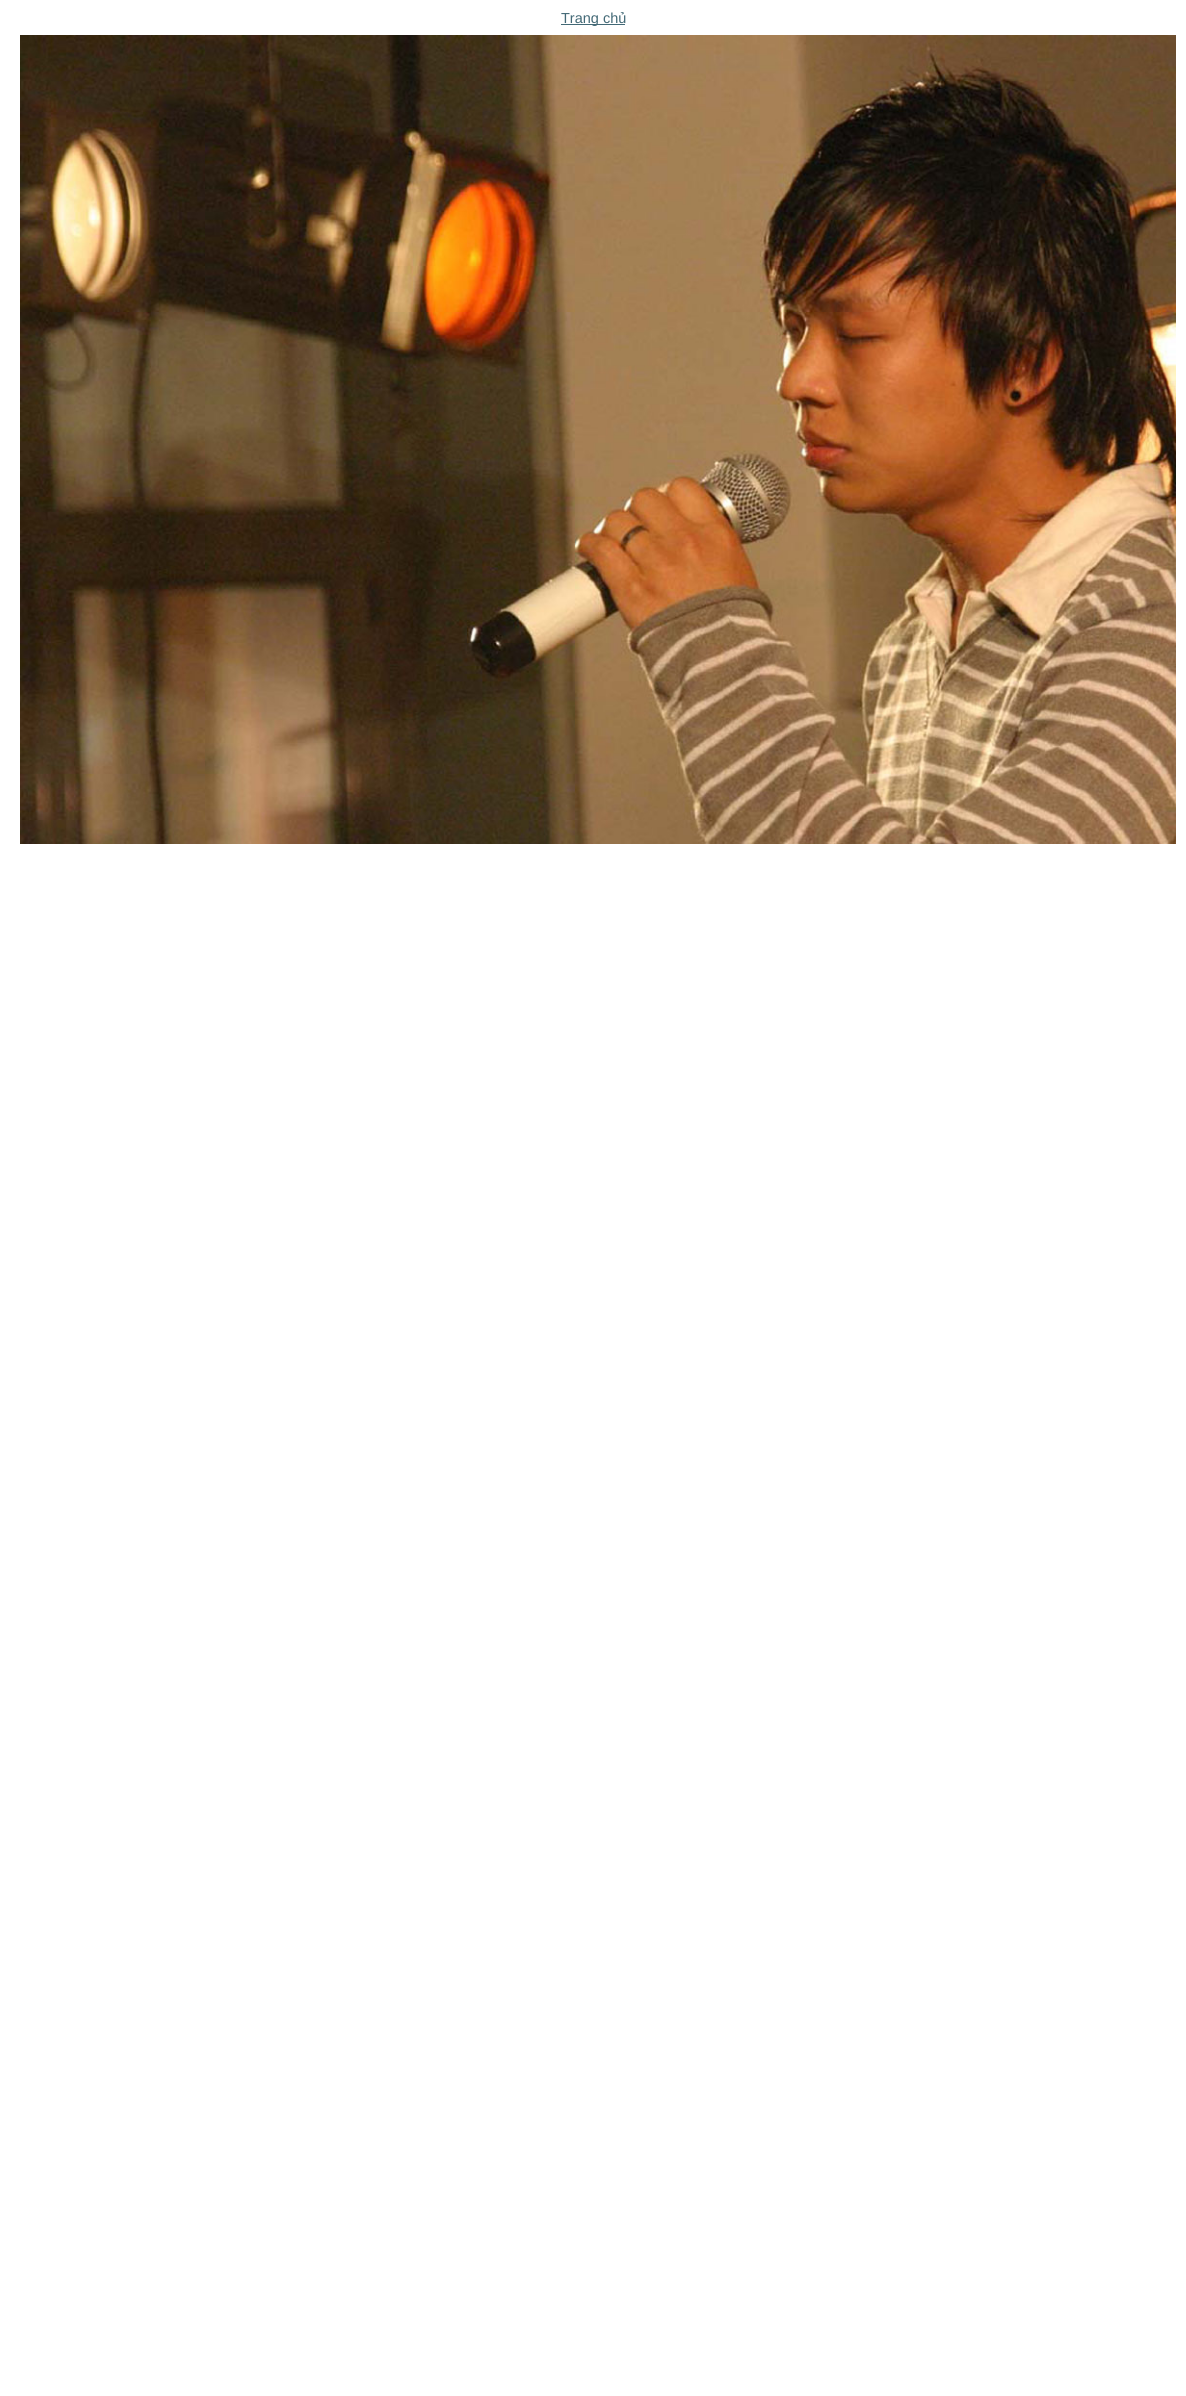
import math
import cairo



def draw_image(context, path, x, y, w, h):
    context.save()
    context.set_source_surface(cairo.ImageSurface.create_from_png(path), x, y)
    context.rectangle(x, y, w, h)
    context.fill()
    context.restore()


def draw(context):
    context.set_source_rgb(1, 1, 1)
    context.paint()
    context.set_source_rgb(67 / 255, 105 / 255, 118 / 255)
    context.rectangle(561, 24, 64, 1)
    context.fill()
    draw_image(context, "images/1.png", 20, 35, 1156, 809)
    context.select_font_face("Liberation Sans")
    context.set_font_size(14.5)
    context.move_to(561, 23)
    context.show_text("Trang chủ")


surface = cairo.ImageSurface(cairo.Format.RGB24, 1186, 2396)
context = cairo.Context(surface)
options = cairo.FontOptions()
options.set_hint_metrics(cairo.HintMetrics.OFF)
options.set_hint_style(cairo.HintStyle.NONE)
context.set_font_options(options)
context.set_miter_limit(4)
draw(context)
surface.write_to_png("out.png")
